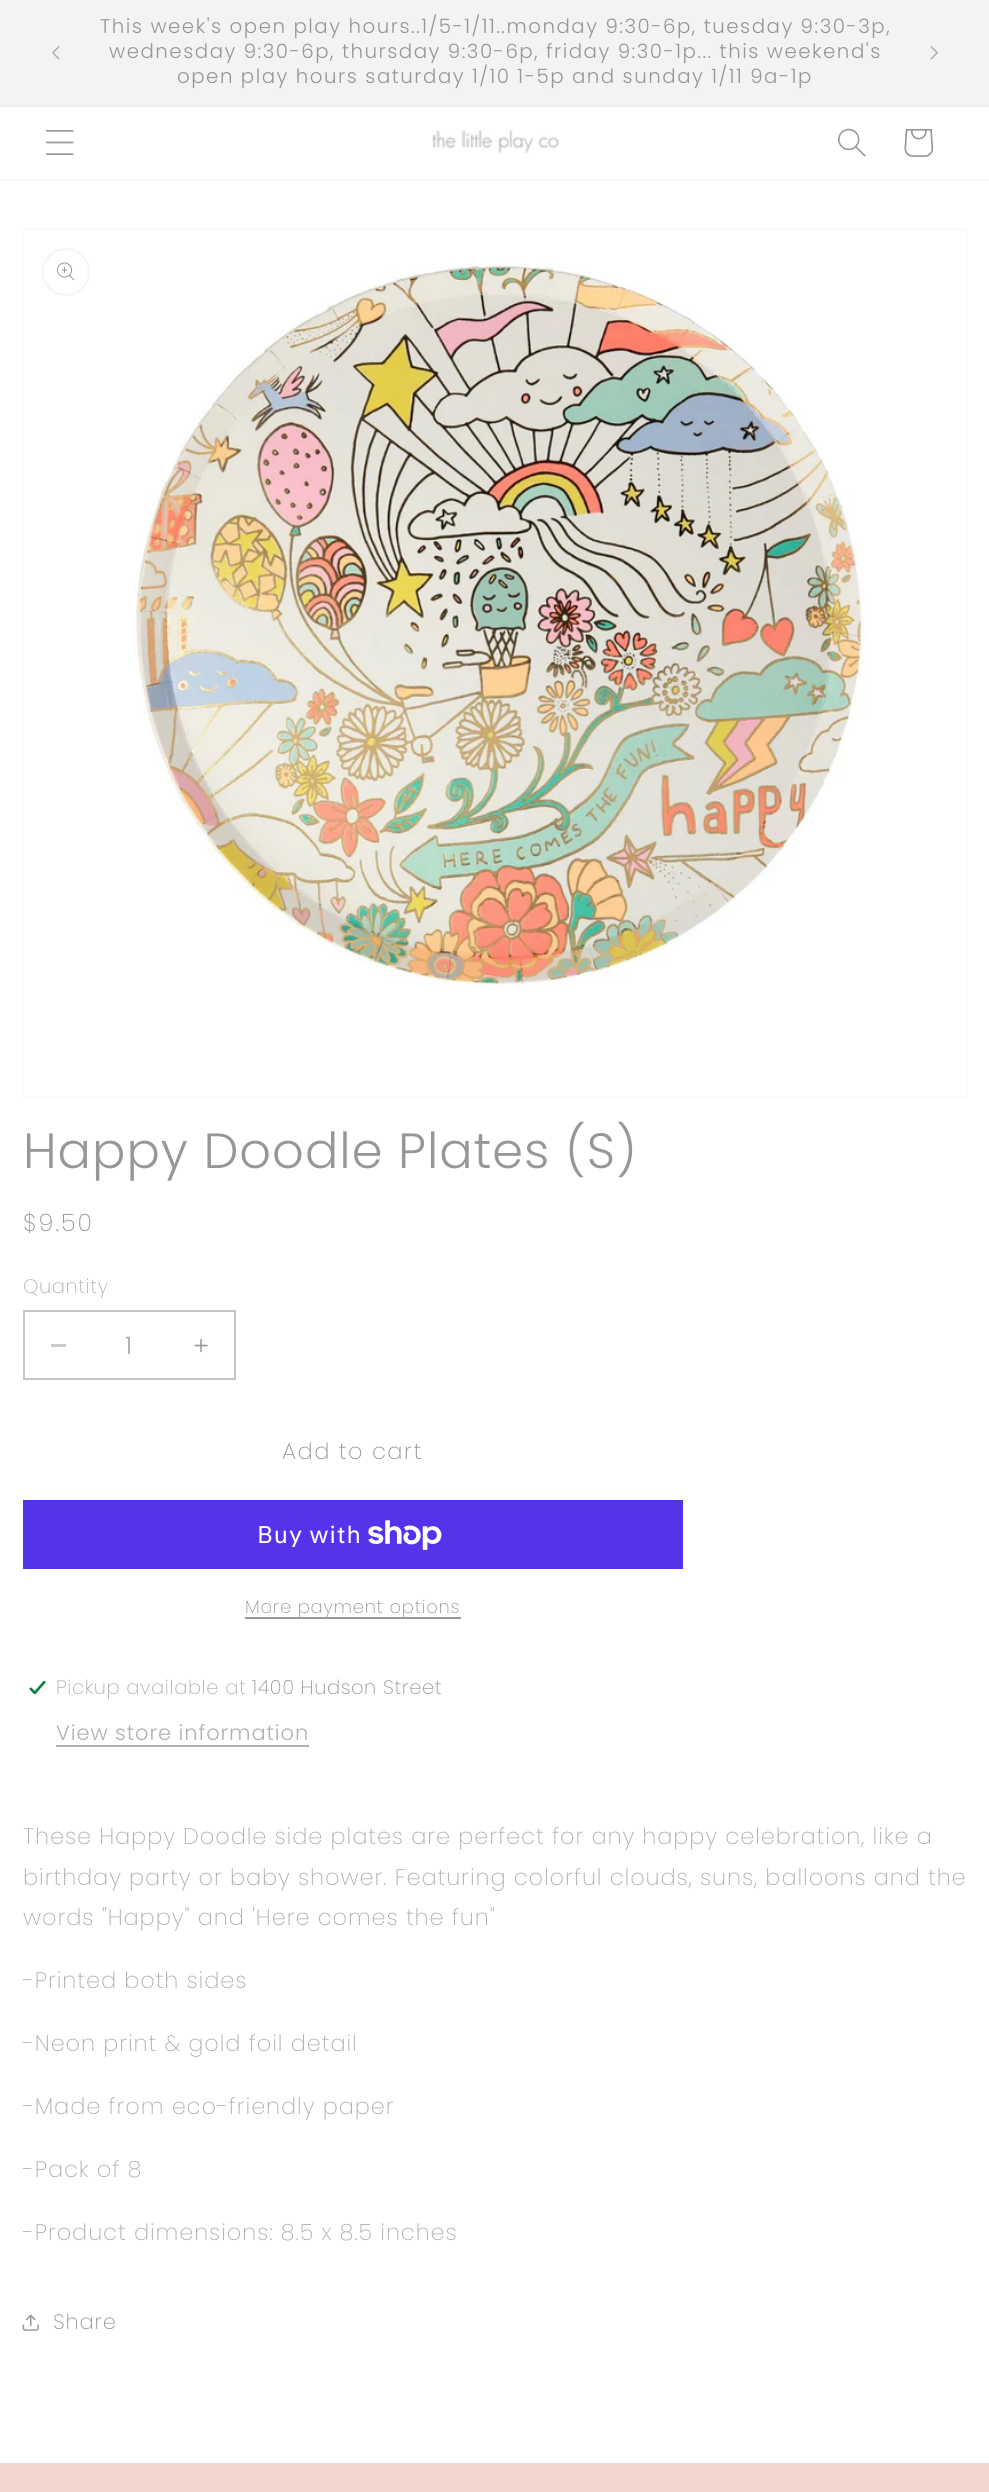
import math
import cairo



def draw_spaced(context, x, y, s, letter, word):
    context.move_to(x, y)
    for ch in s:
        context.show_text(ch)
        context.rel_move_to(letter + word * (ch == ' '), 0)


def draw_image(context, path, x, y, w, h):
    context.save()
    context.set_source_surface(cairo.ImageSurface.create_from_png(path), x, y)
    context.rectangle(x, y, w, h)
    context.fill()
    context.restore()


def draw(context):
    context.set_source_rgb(1, 1, 1)
    context.paint()
    context.set_source_rgb(243 / 255, 243 / 255, 243 / 255)
    context.rectangle(0, 0, 989, 105)
    context.fill()
    context.set_source_rgb(236 / 255, 236 / 255, 236 / 255)
    context.rectangle(0, 105, 989, 2)
    context.fill()
    draw_image(context, "images/1.png", 52, 46, 8, 14)
    draw_image(context, "images/2.png", 930, 46, 8, 14)
    context.set_source_rgb(247 / 255, 247 / 255, 247 / 255)
    context.rectangle(0, 179, 989, 2)
    context.fill()
    draw_image(context, "images/3.png", 45, 130, 29, 25)
    draw_image(context, "images/4.png", 432, 130, 128, 24)
    draw_image(context, "images/5.png", 838, 128, 28, 29)
    draw_image(context, "images/6.png", 904, 129, 30, 28)
    context.rectangle(24, 229, 943, 868)
    context.set_source_rgb(250 / 255, 250 / 255, 250 / 255)
    context.stroke()
    draw_image(context, "images/7.png", 24, 230, 843, 866)
    context.arc(66, 272, 23, 0, 2 * math.pi)
    context.set_source_rgb(245 / 255, 245 / 255, 245 / 255)
    context.stroke()
    draw_image(context, "images/8.png", 57, 262, 18, 19)
    context.set_source_rgb(203 / 255, 203 / 255, 203 / 255)
    context.rectangle(51, 1344, 15, 3)
    context.fill()
    draw_image(context, "images/9.png", 194, 1338, 14, 15)
    context.rectangle(24, 1311, 211, 68)
    context.set_source_rgb(198 / 255, 198 / 255, 198 / 255)
    context.stroke()
    context.set_source_rgb(84 / 255, 51 / 255, 235 / 255)
    context.rectangle(23, 1500, 660, 69)
    context.fill()
    draw_image(context, "images/10.png", 368, 1520, 74, 30)
    context.set_source_rgb(151 / 255, 151 / 255, 151 / 255)
    context.rectangle(245, 1617, 216, 2)
    context.fill()
    draw_image(context, "images/11.png", 28, 1680, 19, 15)
    context.set_source_rgb(177 / 255, 177 / 255, 177 / 255)
    context.rectangle(56, 1745, 253, 2)
    context.fill()
    draw_image(context, "images/12.png", 22, 2314, 17, 17)
    context.set_source_rgb(242 / 255, 214 / 255, 208 / 255)
    context.rectangle(0, 2463, 989, 29)
    context.fill()
    context.select_font_face("Poppins Light")
    context.set_font_size(19.8)
    context.set_source_rgb(151 / 255, 151 / 255, 151 / 255)
    draw_spaced(context, 100, 33, "This week's open play hours..1/5-1/11..monday 9:30-6p, tuesday 9:30-3p,", 1.5, 0)
    draw_spaced(context, 109, 58, "wednesday 9:30-6p, thursday 9:30-6p, friday 9:30-1p... this weekend's", 1.5, 0)
    draw_spaced(context, 177, 83, "open play hours saturday 1/10 1-5p and sunday 1/11 9a-1p", 1.5, 0)
    context.set_font_size(49.5)
    draw_spaced(context, 23, 1168, "Happy Doodle Plates (S)", 1, 0)
    context.select_font_face("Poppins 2 Light")
    context.set_font_size(24)
    draw_spaced(context, 23, 1231, "$9.50", 2, 0)
    context.set_font_size(19.5)
    context.set_source_rgb(177 / 255, 177 / 255, 177 / 255)
    draw_spaced(context, 23, 1293, "Quantity", 0.6, 0)
    context.select_font_face("Poppins Light")
    context.set_font_size(24)
    context.set_source_rgb(167 / 255, 167 / 255, 167 / 255)
    context.move_to(125, 1354)
    context.show_text("1")
    context.select_font_face("Poppins 2 Light")
    context.set_font_size(22.5)
    context.set_source_rgb(151 / 255, 151 / 255, 151 / 255)
    draw_spaced(context, 282, 1459, "Add to cart", 1.5, 0)
    context.select_font_face("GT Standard")
    context.set_font_size(24)
    context.set_source_rgb(1, 1, 1)
    draw_spaced(context, 257, 1543, "Buy with", 0.9, 0)
    context.select_font_face("Poppins 2 Light")
    context.set_font_size(18)
    context.set_source_rgb(151 / 255, 151 / 255, 151 / 255)
    draw_spaced(context, 245, 1613, "More payment options", 0.75, 0)
    context.set_font_size(19.5)
    context.set_source_rgb(177 / 255, 177 / 255, 177 / 255)
    draw_spaced(context, 56, 1694, "Pickup available at", 0.6, 0)
    context.set_source_rgb(151 / 255, 151 / 255, 151 / 255)
    draw_spaced(context, 252, 1694, "1400 Hudson Street", 0.6, 0)
    context.select_font_face("Poppins Light")
    context.set_font_size(21)
    context.set_source_rgb(177 / 255, 177 / 255, 177 / 255)
    draw_spaced(context, 56, 1740, "View store information", 0.9, 0)
    context.select_font_face("Poppins 2 Light")
    context.set_font_size(22.5)
    draw_spaced(context, 23, 1844, "These Happy Doodle side plates are perfect for any happy celebration, like a", 0.9, 0)
    draw_spaced(context, 23, 1885, "birthday party or baby shower. Featuring colorful clouds, suns, balloons and the", 0.9, 0)
    draw_spaced(context, 23, 1925, "words \"Happy\" and 'Here comes the fun\"", 0.9, 0)
    draw_spaced(context, 23, 1988, "-Printed both sides", 0.9, 0)
    draw_spaced(context, 23, 2051, "-Neon print & gold foil detail", 0.9, 0)
    draw_spaced(context, 23, 2114, "-Made from eco-friendly paper", 0.9, 0)
    draw_spaced(context, 23, 2177, "-Pack of 8", 0.9, 0)
    draw_spaced(context, 23, 2240, "-Product dimensions: 8.5 x 8.5 inches", 0.9, 0)
    context.set_font_size(21)
    context.set_source_rgb(151 / 255, 151 / 255, 151 / 255)
    draw_spaced(context, 53, 2329, "Share", 0.9, 0)


surface = cairo.ImageSurface(cairo.Format.RGB24, 989, 2492)
context = cairo.Context(surface)
options = cairo.FontOptions()
options.set_hint_metrics(cairo.HintMetrics.OFF)
options.set_hint_style(cairo.HintStyle.NONE)
context.set_font_options(options)
context.set_miter_limit(4)
draw(context)
surface.write_to_png("out.png")
